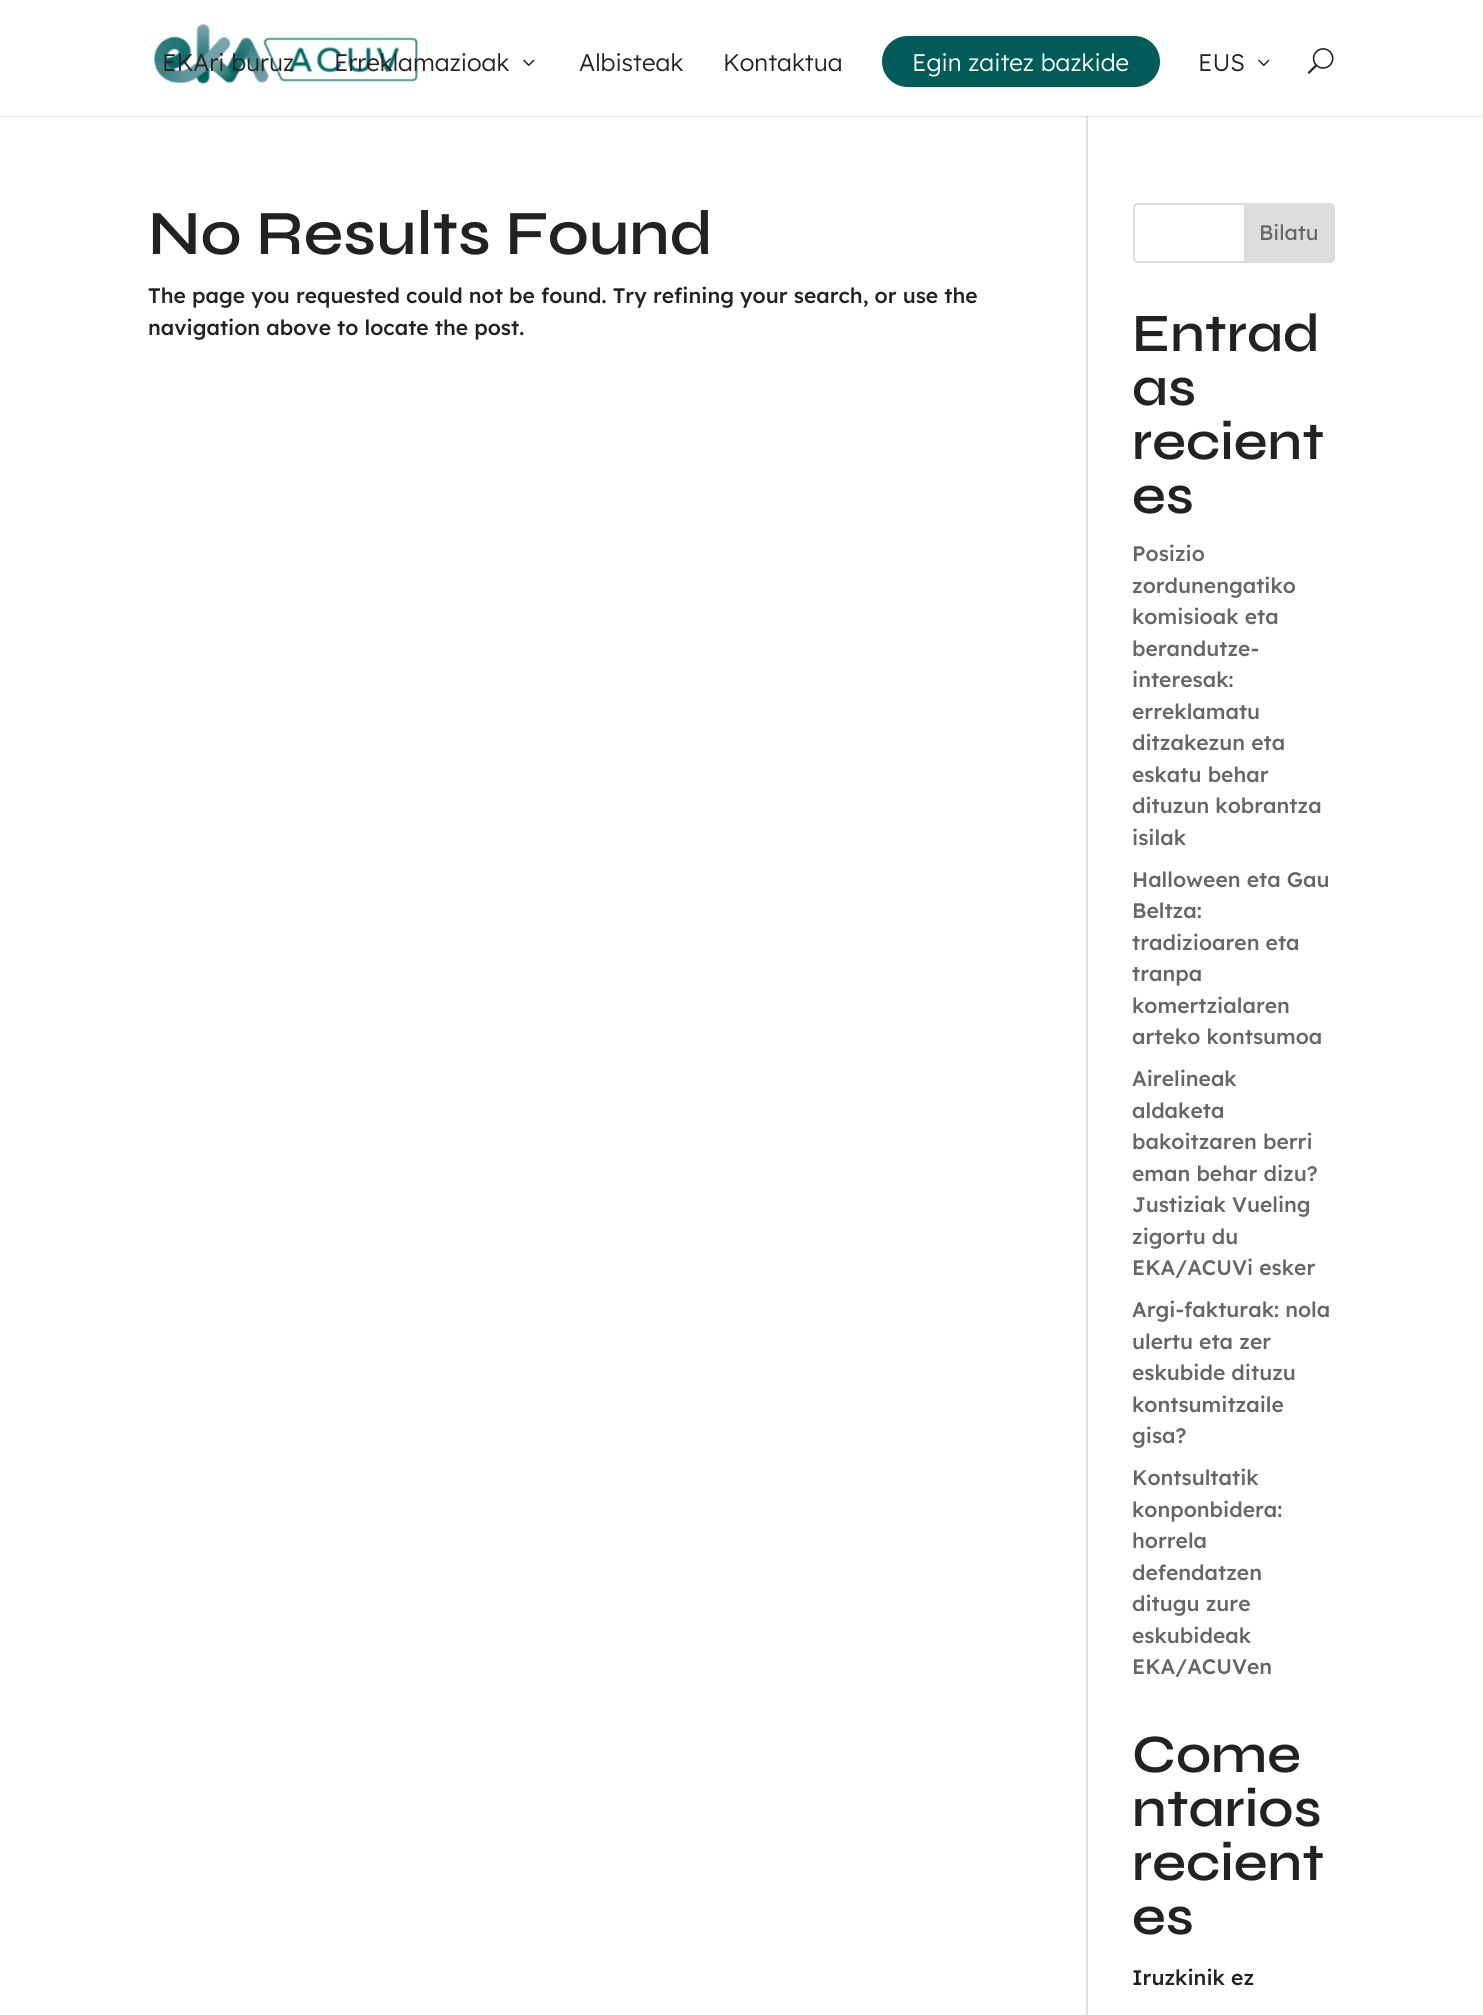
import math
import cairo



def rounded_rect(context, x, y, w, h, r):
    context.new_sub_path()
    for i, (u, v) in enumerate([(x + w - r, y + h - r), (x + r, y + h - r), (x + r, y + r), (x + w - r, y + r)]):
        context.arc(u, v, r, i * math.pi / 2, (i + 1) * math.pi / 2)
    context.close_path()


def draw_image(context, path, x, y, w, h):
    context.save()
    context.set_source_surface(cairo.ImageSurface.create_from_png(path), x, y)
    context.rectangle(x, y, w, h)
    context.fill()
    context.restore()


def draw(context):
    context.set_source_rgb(1, 1, 1)
    context.paint()
    context.set_source_rgb(226 / 255, 226 / 255, 226 / 255)
    context.rectangle(1086, 116, 2, 1899)
    context.fill()
    context.set_source_rgba(0, 0, 0, 0.1)
    context.new_path()
    context.move_to(0, 116)
    context.line_to(0, 117)
    context.line_to(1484, 117)
    context.line_to(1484, 2)
    context.line_to(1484, 116)
    context.close_path()
    context.fill()
    draw_image(context, "images/1.png", 154, 24, 264, 60)
    draw_image(context, "images/2.png", 523, 59, 12, 7)
    context.set_source_rgb(0, 91 / 255, 89 / 255)
    rounded_rect(context, 882, 36, 278, 51, 25.5)
    context.fill()
    draw_image(context, "images/2.png", 1258, 59, 12, 7)
    draw_image(context, "images/3.png", 1307, 48, 27, 26)
    rounded_rect(context, 1134, 204, 200, 58, 4)
    context.set_source_rgb(221 / 255, 221 / 255, 221 / 255)
    context.stroke()
    context.new_path()
    context.move_to(1245, 204)
    context.line_to(1330, 204)
    context.curve_to(1332, 204, 1334, 206, 1334, 208)
    context.line_to(1334, 258)
    context.curve_to(1334, 260, 1332, 262, 1330, 262)
    context.line_to(1245, 262)
    context.close_path()
    context.fill_preserve()
    context.stroke()
    context.select_font_face("Lexend Light")
    context.set_font_size(24)
    context.set_source_rgb(34 / 255, 34 / 255, 34 / 255)
    context.move_to(162, 71)
    context.show_text("EKAri buruz")
    context.move_to(334, 71)
    context.show_text("Erreklamazioak")
    context.move_to(579, 71)
    context.show_text("Albisteak")
    context.move_to(723, 71)
    context.show_text("Kontaktua")
    context.set_source_rgb(1, 1, 1)
    context.move_to(912, 71)
    context.show_text("Egin zaitez bazkide")
    context.set_source_rgb(34 / 255, 34 / 255, 34 / 255)
    context.move_to(1198, 71)
    context.show_text("EUS")
    context.select_font_face("Syne SemiBold")
    context.set_font_size(63)
    context.move_to(148, 254)
    context.show_text("No Results Found")
    context.select_font_face("Lexend Medium")
    context.set_font_size(21)
    context.move_to(148, 303)
    context.show_text("The page you requested could not be found. Try refining your search, or use the")
    context.move_to(148, 335)
    context.show_text("navigation above to locate the post.")
    context.select_font_face("Lexend")
    context.set_source_rgb(102 / 255, 102 / 255, 102 / 255)
    context.move_to(1259, 240)
    context.show_text("Bilatu")
    context.select_font_face("Syne SemiBold")
    context.set_font_size(54)
    context.set_source_rgb(34 / 255, 34 / 255, 34 / 255)
    context.move_to(1132, 351)
    context.show_text("Entrad")
    context.move_to(1132, 405)
    context.show_text("as")
    context.move_to(1132, 459)
    context.show_text("recient")
    context.move_to(1132, 513)
    context.show_text("es")
    context.select_font_face("Lexend Medium")
    context.set_font_size(21)
    context.set_source_rgb(102 / 255, 102 / 255, 102 / 255)
    context.move_to(1132, 561)
    context.show_text("Posizio")
    context.move_to(1132, 593)
    context.show_text("zordunengatiko")
    context.move_to(1132, 624)
    context.show_text("komisioak eta")
    context.move_to(1132, 656)
    context.show_text("berandutze-")
    context.move_to(1132, 687)
    context.show_text("interesak:")
    context.move_to(1132, 719)
    context.show_text("erreklamatu")
    context.move_to(1132, 750)
    context.show_text("ditzakezun eta")
    context.move_to(1132, 782)
    context.show_text("eskatu behar")
    context.move_to(1132, 813)
    context.show_text("dituzun kobrantza")
    context.move_to(1132, 845)
    context.show_text("isilak")
    context.move_to(1132, 887)
    context.show_text("Halloween eta Gau")
    context.move_to(1132, 918)
    context.show_text("Beltza:")
    context.move_to(1132, 950)
    context.show_text("tradizioaren eta")
    context.move_to(1132, 981)
    context.show_text("tranpa")
    context.move_to(1132, 1013)
    context.show_text("komertzialaren")
    context.move_to(1132, 1044)
    context.show_text("arteko kontsumoa")
    context.move_to(1132, 1086)
    context.show_text("Airelineak")
    context.move_to(1132, 1118)
    context.show_text("aldaketa")
    context.move_to(1132, 1149)
    context.show_text("bakoitzaren berri")
    context.move_to(1132, 1181)
    context.show_text("eman behar dizu?")
    context.move_to(1132, 1212)
    context.show_text("Justiziak Vueling")
    context.move_to(1132, 1244)
    context.show_text("zigortu du")
    context.move_to(1132, 1275)
    context.show_text("EKA/ACUVi esker")
    context.move_to(1132, 1317)
    context.show_text("Argi-fakturak: nola")
    context.move_to(1132, 1349)
    context.show_text("ulertu eta zer")
    context.move_to(1132, 1380)
    context.show_text("eskubide dituzu")
    context.move_to(1132, 1412)
    context.show_text("kontsumitzaile")
    context.move_to(1132, 1443)
    context.show_text("gisa?")
    context.move_to(1132, 1485)
    context.show_text("Kontsultatik")
    context.move_to(1132, 1517)
    context.show_text("konponbidera:")
    context.move_to(1132, 1548)
    context.show_text("horrela")
    context.move_to(1132, 1580)
    context.show_text("defendatzen")
    context.move_to(1132, 1611)
    context.show_text("ditugu zure")
    context.move_to(1132, 1643)
    context.show_text("eskubideak")
    context.move_to(1132, 1674)
    context.show_text("EKA/ACUVen")
    context.select_font_face("Syne SemiBold")
    context.set_font_size(54)
    context.set_source_rgb(34 / 255, 34 / 255, 34 / 255)
    context.move_to(1132, 1772)
    context.show_text("Come")
    context.move_to(1132, 1826)
    context.show_text("ntarios")
    context.move_to(1132, 1880)
    context.show_text("recient")
    context.move_to(1132, 1934)
    context.show_text("es")
    context.select_font_face("Lexend Medium")
    context.set_font_size(21)
    context.move_to(1132, 1985)
    context.show_text("Iruzkinik ez")


surface = cairo.ImageSurface(cairo.Format.RGB24, 1483, 2015)
context = cairo.Context(surface)
options = cairo.FontOptions()
options.set_hint_metrics(cairo.HintMetrics.OFF)
options.set_hint_style(cairo.HintStyle.NONE)
context.set_font_options(options)
context.set_miter_limit(4)
draw(context)
surface.write_to_png("out.png")
